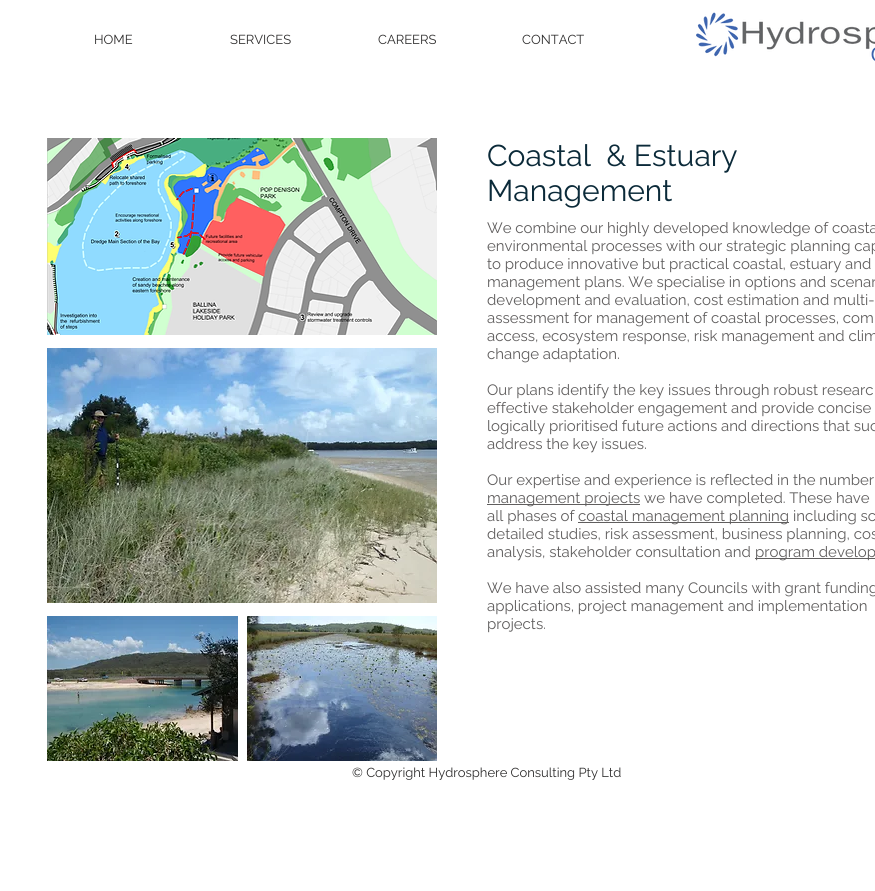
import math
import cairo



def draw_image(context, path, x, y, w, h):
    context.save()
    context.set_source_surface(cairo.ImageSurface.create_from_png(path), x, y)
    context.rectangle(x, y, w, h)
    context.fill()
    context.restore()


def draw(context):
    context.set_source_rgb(1, 1, 1)
    context.paint()
    draw_image(context, "images/1.png", 696, 12, 179, 49)
    draw_image(context, "images/2.png", 47, 138, 390, 197)
    draw_image(context, "images/3.png", 47, 348, 390, 255)
    context.set_source_rgb(96 / 255, 94 / 255, 94 / 255)
    context.rectangle(487, 504, 153, 1)
    context.fill()
    context.rectangle(578, 522, 211, 1)
    context.fill()
    context.rectangle(755, 558, 120, 1)
    context.fill()
    draw_image(context, "images/4.png", 47, 616, 191, 145)
    draw_image(context, "images/5.png", 247, 616, 190, 145)
    context.select_font_face("Raleway")
    context.set_font_size(13)
    context.set_source_rgb(47 / 255, 46 / 255, 46 / 255)
    context.move_to(94, 44)
    context.show_text("HOME")
    context.move_to(230, 44)
    context.show_text("SERVICES")
    context.move_to(378, 44)
    context.show_text("CAREERS")
    context.move_to(522, 44)
    context.show_text("CONTACT")
    context.set_font_size(30)
    context.set_source_rgb(11 / 255, 42 / 255, 57 / 255)
    context.move_to(487, 166)
    context.show_text("Coastal  & Estuary")
    context.move_to(487, 201)
    context.show_text("Management")
    context.set_font_size(15)
    context.set_source_rgb(96 / 255, 94 / 255, 94 / 255)
    context.move_to(487, 233)
    context.show_text("We combine our highly developed knowledge of coasta")
    context.move_to(487, 251)
    context.show_text("environmental processes with our strategic planning cap")
    context.move_to(487, 269)
    context.show_text("to produce innovative but practical coastal, estuary and")
    context.move_to(487, 287)
    context.show_text("management plans. We specialise in options and scenar")
    context.move_to(487, 305)
    context.show_text("development and evaluation, cost estimation and multi-")
    context.move_to(487, 323)
    context.show_text("assessment for management of coastal processes, com")
    context.move_to(487, 341)
    context.show_text("access, ecosystem response, risk management and clim")
    context.move_to(487, 359)
    context.show_text("change adaptation.")
    context.move_to(487, 395)
    context.show_text("Our plans identify the key issues through robust researc")
    context.move_to(487, 413)
    context.show_text("effective stakeholder engagement and provide concise")
    context.move_to(487, 431)
    context.show_text("logically prioritised future actions and directions that suc")
    context.move_to(487, 449)
    context.show_text("address the key issues.")
    context.move_to(487, 485)
    context.show_text("Our expertise and experience is reflected in the number")
    context.move_to(487, 503)
    context.show_text("management projects we have completed. These have")
    context.move_to(487, 521)
    context.show_text("all phases of")
    context.move_to(578, 521)
    context.show_text("coastal management planning including sc")
    context.move_to(487, 539)
    context.show_text("detailed studies, risk assessment, business planning, cos")
    context.move_to(487, 557)
    context.show_text("analysis, stakeholder consultation and")
    context.move_to(755, 557)
    context.show_text("program develop")
    context.move_to(487, 593)
    context.show_text("We have also assisted many Councils with grant funding")
    context.move_to(487, 611)
    context.show_text("applications, project management and implementation")
    context.move_to(487, 629)
    context.show_text("projects.")
    context.set_font_size(13)
    context.set_source_rgb(47 / 255, 46 / 255, 46 / 255)
    context.move_to(352, 777)
    context.show_text("© Copyright Hydrosphere Consulting Pty Ltd")


surface = cairo.ImageSurface(cairo.Format.RGB24, 875, 891)
context = cairo.Context(surface)
options = cairo.FontOptions()
options.set_hint_metrics(cairo.HintMetrics.OFF)
options.set_hint_style(cairo.HintStyle.NONE)
context.set_font_options(options)
context.set_miter_limit(4)
draw(context)
surface.write_to_png("out.png")
